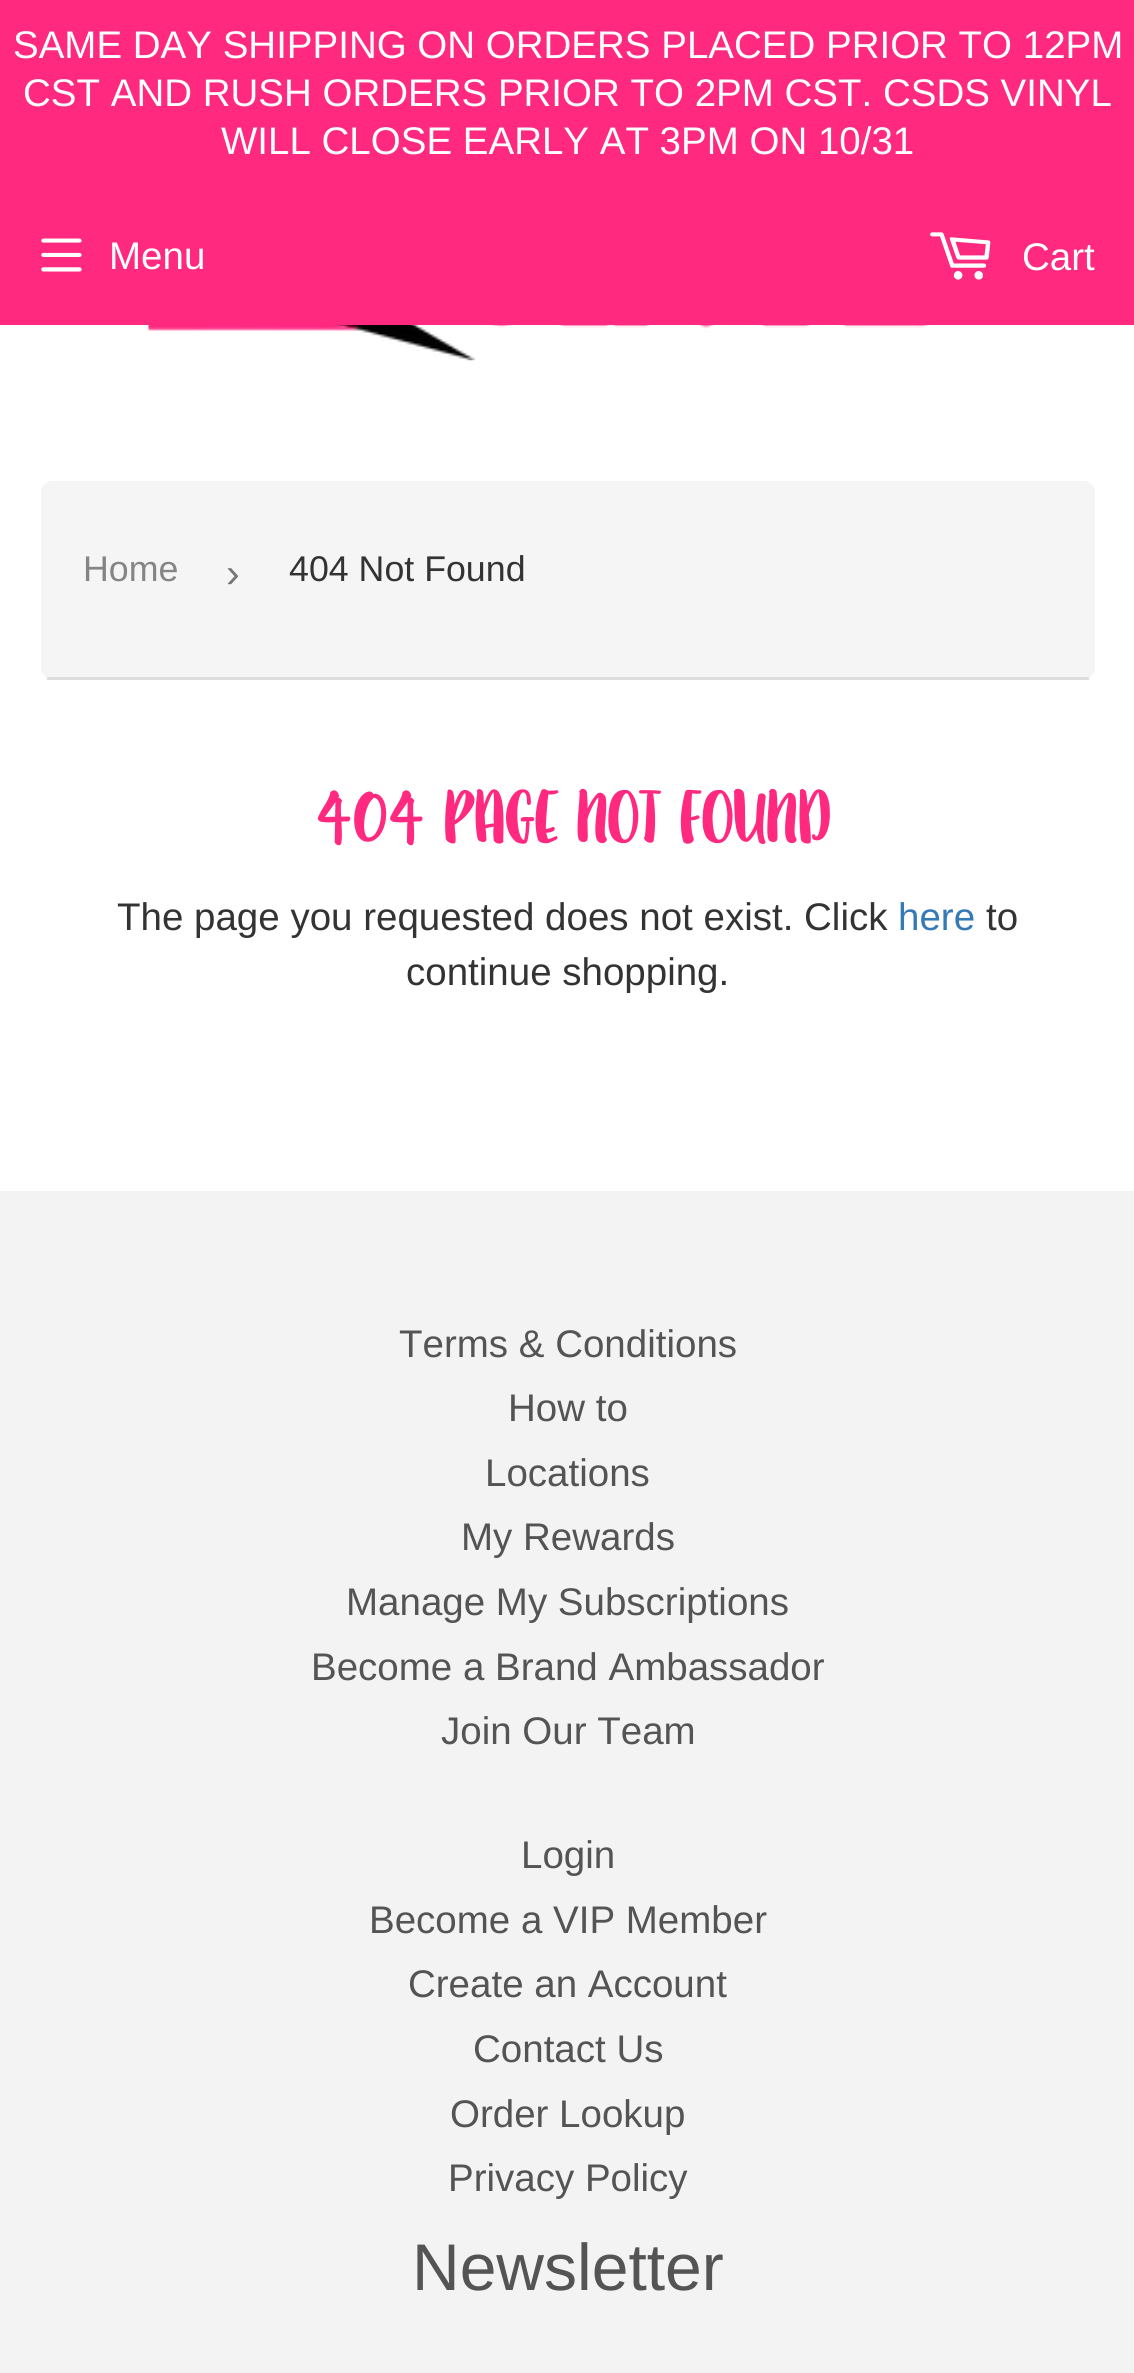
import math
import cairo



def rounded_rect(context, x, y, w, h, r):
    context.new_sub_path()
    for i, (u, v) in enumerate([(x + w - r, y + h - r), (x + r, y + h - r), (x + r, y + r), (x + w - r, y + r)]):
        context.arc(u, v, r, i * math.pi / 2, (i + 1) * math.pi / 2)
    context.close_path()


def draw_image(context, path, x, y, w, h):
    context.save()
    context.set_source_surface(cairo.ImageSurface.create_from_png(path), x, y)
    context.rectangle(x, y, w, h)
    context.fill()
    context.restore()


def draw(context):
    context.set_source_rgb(1, 1, 1)
    context.paint()
    context.set_source_rgb(1, 42 / 255, 127 / 255)
    context.rectangle(0, 0, 1134, 325)
    context.fill()
    draw_image(context, "images/1.png", 41, 238, 41, 34)
    draw_image(context, "images/2.png", 930, 232, 61, 48)
    draw_image(context, "images/3.png", 148, 325, 781, 36)
    context.set_source_rgb(245 / 255, 245 / 255, 245 / 255)
    rounded_rect(context, 41, 481, 1054, 198, 11)
    context.fill()
    context.set_source_rgb(222 / 255, 222 / 255, 222 / 255)
    context.rectangle(47, 677, 1042, 3)
    context.fill()
    context.set_source_rgb(243 / 255, 243 / 255, 243 / 255)
    context.rectangle(0, 1191, 1134, 1182)
    context.fill()
    context.select_font_face("Liberation Sans")
    context.set_font_size(38.5)
    context.set_source_rgb(1, 1, 1)
    context.move_to(13, 58)
    context.show_text("SAME DAY SHIPPING ON ORDERS PLACED PRIOR TO 12PM")
    context.move_to(23, 106)
    context.show_text("CST AND RUSH ORDERS PRIOR TO 2PM CST. CSDS VINYL")
    context.move_to(221, 154)
    context.show_text("WILL CLOSE EARLY AT 3PM ON 10/31")
    context.move_to(109, 269)
    context.show_text("Menu")
    context.move_to(1022, 270)
    context.show_text("Cart")
    context.set_font_size(35.75)
    context.set_source_rgb(133 / 255, 133 / 255, 133 / 255)
    context.move_to(83, 581)
    context.show_text("Home")
    context.set_font_size(41)
    context.set_source_rgb(118 / 255, 118 / 255, 118 / 255)
    context.move_to(226, 587)
    context.show_text("›")
    context.set_font_size(35.75)
    context.set_source_rgb(51 / 255, 51 / 255, 51 / 255)
    context.move_to(289, 581)
    context.show_text("404 Not Found")
    context.select_font_face("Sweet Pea", cairo.FontSlant.NORMAL, cairo.FontWeight.BOLD)
    context.set_font_size(67)
    context.set_source_rgb(1, 42 / 255, 127 / 255)
    context.move_to(314, 843)
    context.show_text("404 PAGE NOT FOUND")
    context.select_font_face("Liberation Sans")
    context.set_font_size(38.5)
    context.set_source_rgb(51 / 255, 51 / 255, 51 / 255)
    context.move_to(117, 930)
    context.show_text("The page you requested does not exist. Click")
    context.set_source_rgb(51 / 255, 122 / 255, 183 / 255)
    context.move_to(898, 930)
    context.show_text("here")
    context.set_source_rgb(51 / 255, 51 / 255, 51 / 255)
    context.move_to(986, 930)
    context.show_text("to")
    context.move_to(406, 985)
    context.show_text("continue shopping.")
    context.set_source_rgb(84 / 255, 84 / 255, 84 / 255)
    context.move_to(399, 1357)
    context.show_text("Terms & Conditions")
    context.move_to(508, 1421)
    context.show_text("How to")
    context.move_to(485, 1486)
    context.show_text("Locations")
    context.move_to(461, 1550)
    context.show_text("My Rewards")
    context.move_to(346, 1615)
    context.show_text("Manage My Subscriptions")
    context.move_to(311, 1680)
    context.show_text("Become a Brand Ambassador")
    context.move_to(441, 1744)
    context.show_text("Join Our Team")
    context.move_to(521, 1868)
    context.show_text("Login")
    context.move_to(369, 1933)
    context.show_text("Become a VIP Member")
    context.move_to(408, 1997)
    context.show_text("Create an Account")
    context.move_to(473, 2062)
    context.show_text("Contact Us")
    context.move_to(450, 2127)
    context.show_text("Order Lookup")
    context.move_to(448, 2191)
    context.show_text("Privacy Policy")
    context.set_font_size(66)
    context.move_to(412, 2290)
    context.show_text("Newsletter")


surface = cairo.ImageSurface(cairo.Format.RGB24, 1134, 2373)
context = cairo.Context(surface)
options = cairo.FontOptions()
options.set_hint_metrics(cairo.HintMetrics.OFF)
options.set_hint_style(cairo.HintStyle.NONE)
context.set_font_options(options)
context.set_miter_limit(4)
draw(context)
surface.write_to_png("out.png")
